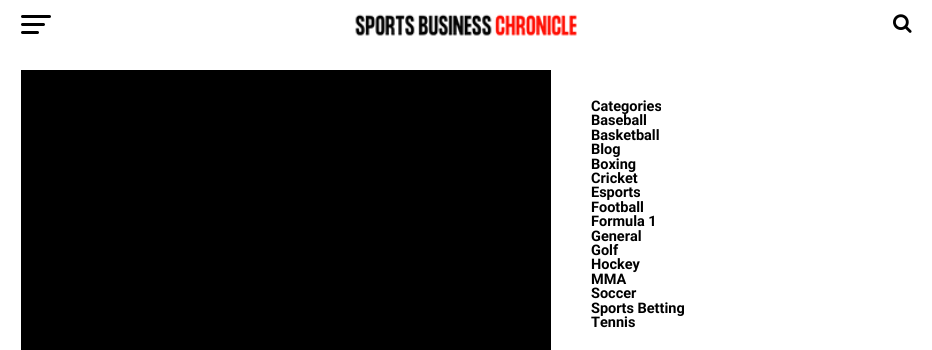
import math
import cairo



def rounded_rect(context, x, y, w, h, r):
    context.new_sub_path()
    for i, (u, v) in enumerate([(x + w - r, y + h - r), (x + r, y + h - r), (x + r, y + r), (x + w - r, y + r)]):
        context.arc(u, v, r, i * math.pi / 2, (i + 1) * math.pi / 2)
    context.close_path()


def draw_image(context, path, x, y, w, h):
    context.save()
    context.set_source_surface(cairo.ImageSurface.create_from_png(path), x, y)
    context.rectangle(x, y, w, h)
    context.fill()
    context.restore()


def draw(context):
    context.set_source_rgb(1, 1, 1)
    context.paint()
    context.set_source_rgb(0, 0, 0)
    rounded_rect(context, 21, 15, 30, 3, 1.5)
    context.fill()
    rounded_rect(context, 21, 23, 24, 3, 1.5)
    context.fill()
    rounded_rect(context, 21, 31, 18, 3, 1.5)
    context.fill()
    draw_image(context, "images/1.png", 355, 14, 222, 22)
    draw_image(context, "images/2.png", 893, 14, 19, 19)
    context.rectangle(21, 70, 530, 280)
    context.fill()
    context.select_font_face("Roboto", cairo.FontSlant.NORMAL, cairo.FontWeight.BOLD)
    context.set_font_size(14.5)
    context.move_to(591, 111)
    context.show_text("Categories")
    context.move_to(591, 125)
    context.show_text("Baseball")
    context.move_to(591, 140)
    context.show_text("Basketball")
    context.move_to(591, 154)
    context.show_text("Blog")
    context.move_to(591, 169)
    context.show_text("Boxing")
    context.move_to(591, 183)
    context.show_text("Cricket")
    context.move_to(591, 197)
    context.show_text("Esports")
    context.move_to(591, 212)
    context.show_text("Football")
    context.move_to(591, 226)
    context.show_text("Formula 1")
    context.move_to(591, 241)
    context.show_text("General")
    context.move_to(591, 255)
    context.show_text("Golf")
    context.move_to(591, 269)
    context.show_text("Hockey")
    context.move_to(591, 284)
    context.show_text("MMA")
    context.move_to(591, 298)
    context.show_text("Soccer")
    context.move_to(591, 313)
    context.show_text("Sports Betting")
    context.move_to(591, 327)
    context.show_text("Tennis")


surface = cairo.ImageSurface(cairo.Format.RGB24, 932, 350)
context = cairo.Context(surface)
options = cairo.FontOptions()
options.set_hint_metrics(cairo.HintMetrics.OFF)
options.set_hint_style(cairo.HintStyle.NONE)
context.set_font_options(options)
context.set_miter_limit(4)
draw(context)
surface.write_to_png("out.png")
